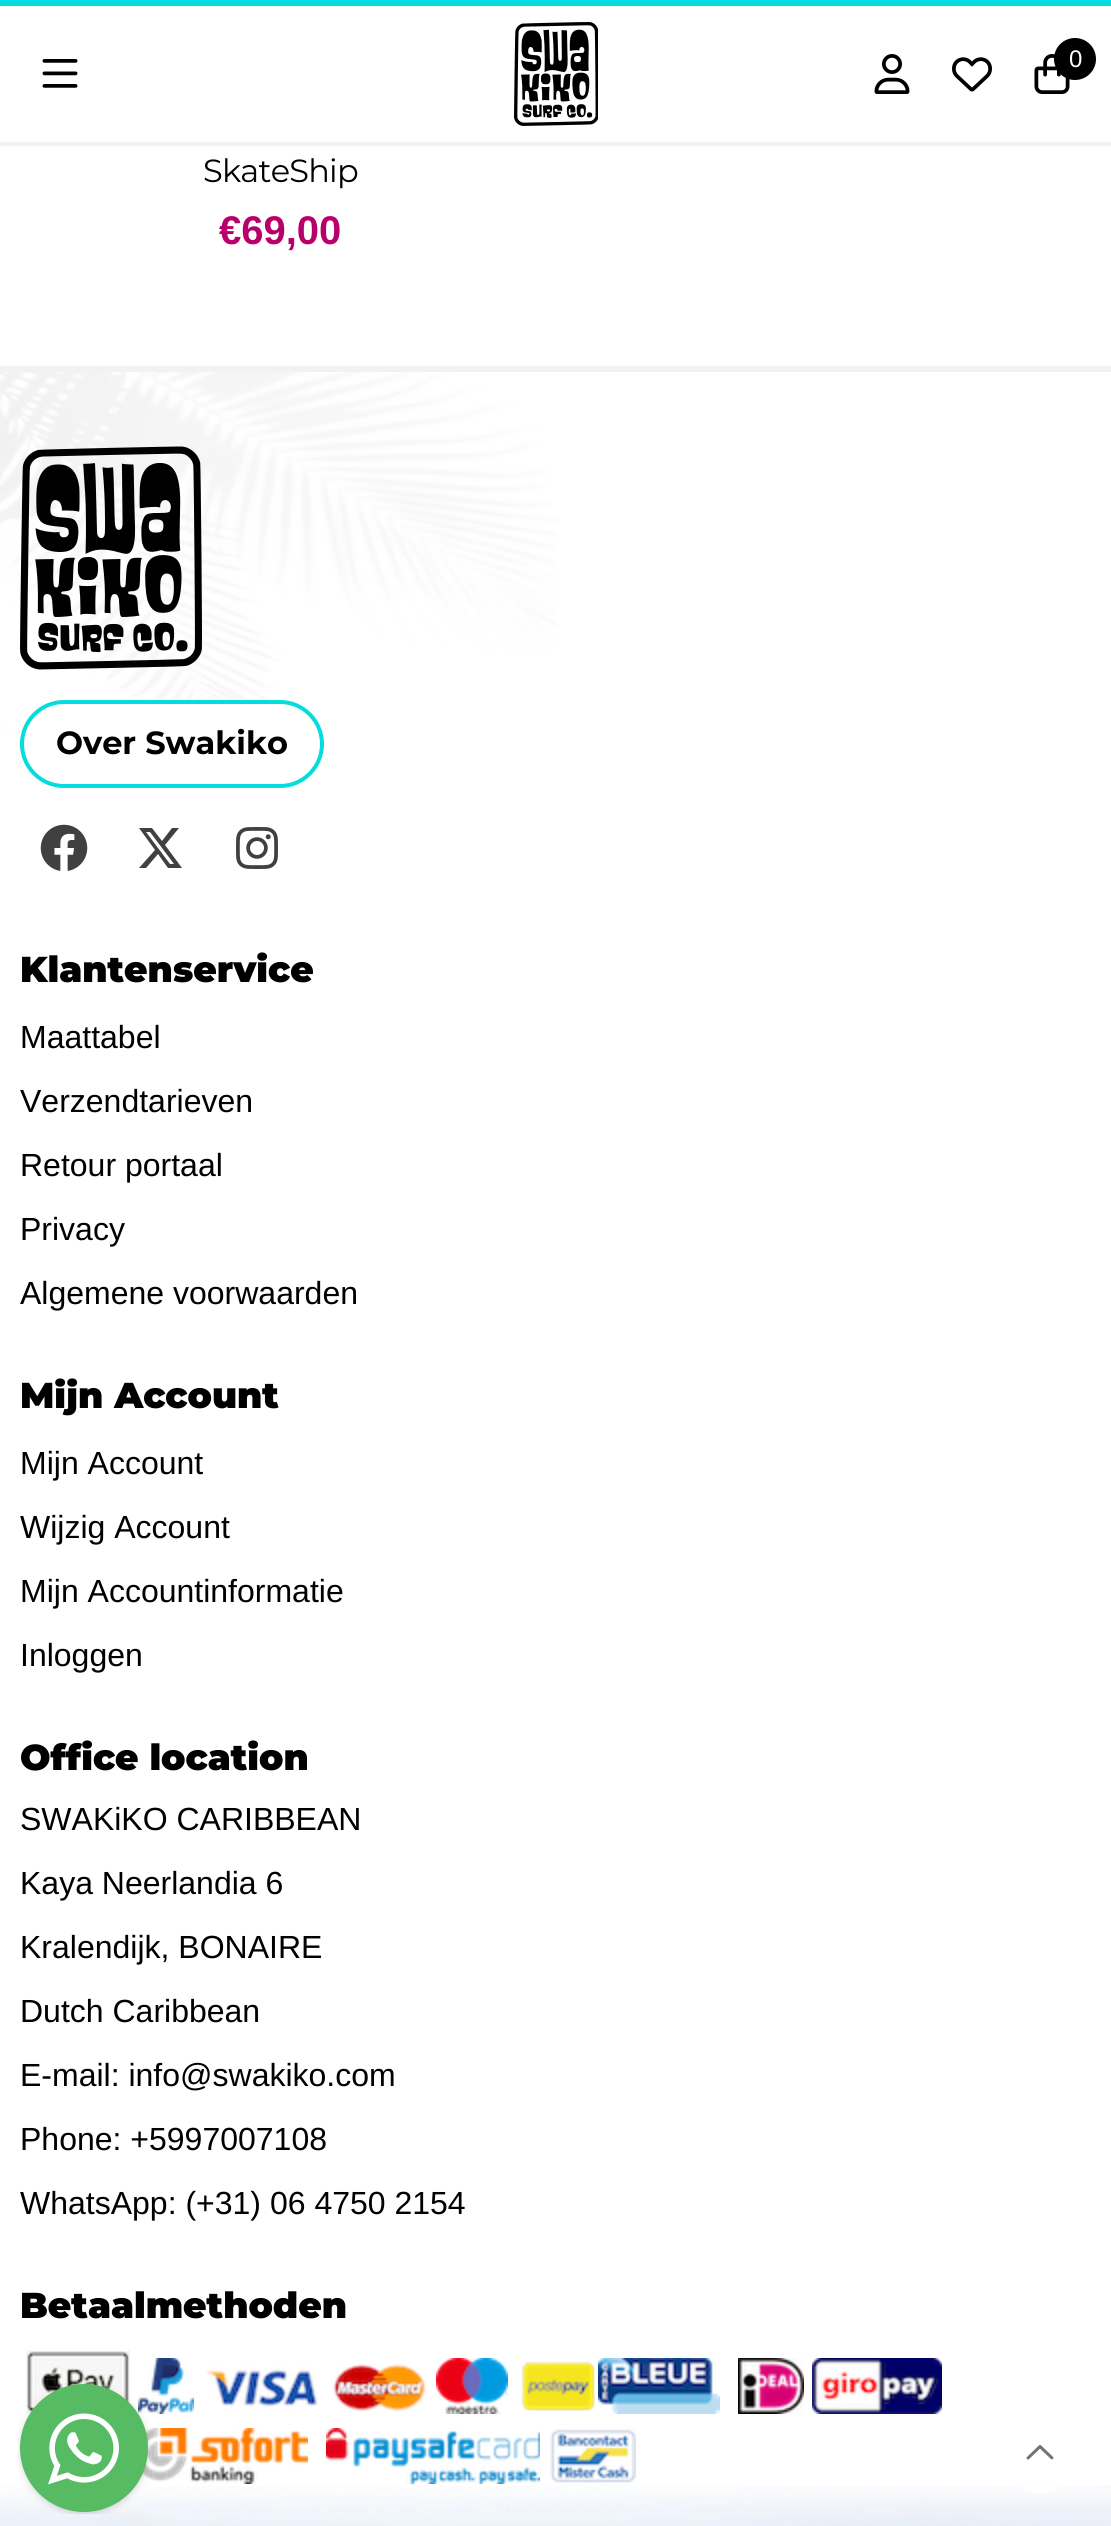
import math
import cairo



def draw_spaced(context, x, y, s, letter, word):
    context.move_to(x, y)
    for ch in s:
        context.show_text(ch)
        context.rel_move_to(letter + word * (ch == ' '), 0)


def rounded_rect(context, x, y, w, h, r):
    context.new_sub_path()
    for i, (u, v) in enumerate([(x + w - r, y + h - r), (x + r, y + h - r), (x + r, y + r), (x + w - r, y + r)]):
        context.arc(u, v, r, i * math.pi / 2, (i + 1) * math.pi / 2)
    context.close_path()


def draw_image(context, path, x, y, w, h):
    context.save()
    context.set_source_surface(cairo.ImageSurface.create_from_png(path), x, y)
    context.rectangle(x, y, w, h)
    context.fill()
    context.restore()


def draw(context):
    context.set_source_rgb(1, 1, 1)
    context.paint()
    context.set_source_rgb(242 / 255, 242 / 255, 242 / 255)
    context.rectangle(0, 142, 1111, 4)
    context.fill()
    context.set_source_rgb(6 / 255, 220 / 255, 221 / 255)
    context.rectangle(0, 0, 1111, 6)
    context.fill()
    draw_image(context, "images/1.png", 42, 59, 36, 29)
    draw_image(context, "images/2.png", 514, 22, 84, 104)
    draw_image(context, "images/3.png", 874, 54, 36, 40)
    draw_image(context, "images/4.png", 952, 57, 40, 35)
    draw_image(context, "images/5.png", 1034, 54, 36, 40)
    context.set_source_rgb(0, 0, 0)
    context.arc(1075, 59, 21, 0, 2 * math.pi)
    context.fill()
    draw_image(context, "images/6.png", 0, 372, 557, 364)
    context.set_source_rgb(242 / 255, 242 / 255, 242 / 255)
    context.rectangle(0, 366, 1111, 6)
    context.fill()
    draw_image(context, "images/7.png", 20, 446, 182, 224)
    context.set_source_rgb(1, 1, 1)
    rounded_rect(context, 22, 702, 300, 84, 42)
    context.fill_preserve()
    context.set_source_rgb(6 / 255, 220 / 255, 221 / 255)
    context.set_line_width(4)
    context.stroke()
    draw_image(context, "images/8.png", 40, 824, 48, 47)
    context.set_source_rgb(64 / 255, 64 / 255, 64 / 255)
    context.new_path()
    context.move_to(172, 828)
    context.line_to(179, 828)
    context.line_to(165, 845)
    context.line_to(182, 868)
    context.line_to(168, 868)
    context.line_to(158, 854)
    context.line_to(146, 868)
    context.line_to(139, 868)
    context.line_to(155, 850)
    context.line_to(139, 828)
    context.line_to(152, 828)
    context.line_to(162, 841)
    context.close_path()
    context.move_to(170, 864)
    context.line_to(174, 864)
    context.line_to(150, 832)
    context.line_to(146, 832)
    context.close_path()
    context.fill()
    draw_image(context, "images/9.png", 236, 827, 42, 42)
    draw_image(context, "images/10.png", 26, 2350, 104, 64)
    draw_image(context, "images/11.png", 138, 2358, 56, 56)
    draw_image(context, "images/12.png", 205, 2363, 222, 48)
    draw_image(context, "images/13.png", 436, 2358, 72, 56)
    draw_image(context, "images/14.png", 521, 2361, 74, 50)
    draw_image(context, "images/15.png", 598, 2358, 122, 56)
    draw_image(context, "images/16.png", 738, 2358, 66, 56)
    draw_image(context, "images/17.png", 812, 2358, 130, 56)
    draw_image(context, "images/18.png", 26, 2475, 5, 9)
    draw_image(context, "images/19.png", 142, 2428, 166, 56)
    draw_image(context, "images/20.png", 326, 2428, 214, 56)
    draw_image(context, "images/21.png", 550, 2429, 86, 54)
    draw_image(context, "images/22.png", 0, 2485, 1111, 41)
    draw_image(context, "images/23.png", 18, 2383, 132, 131)
    context.set_source_rgba(1, 1, 1, 0.75)
    context.arc(1040, 2454, 40, 0, 2 * math.pi)
    context.fill()
    draw_image(context, "images/24.png", 1026, 2445, 28, 15)
    context.select_font_face("Arimo")
    context.set_font_size(24)
    context.set_source_rgb(1, 1, 1)
    context.move_to(1069, 67)
    context.show_text("0")
    context.select_font_face("Montserrat")
    context.set_font_size(32)
    context.set_source_rgb(0, 0, 0)
    draw_spaced(context, 203, 182, "SkateShip", -0.75, 0)
    context.select_font_face("Arimo", cairo.FontSlant.NORMAL, cairo.FontWeight.BOLD)
    context.set_font_size(40)
    context.set_source_rgb(184 / 255, 0, 107 / 255)
    context.move_to(219, 244)
    context.show_text("€69,00")
    context.select_font_face("Montserrat", cairo.FontSlant.NORMAL, cairo.FontWeight.BOLD)
    context.set_font_size(32)
    context.set_source_rgb(0, 0, 0)
    context.move_to(56, 754)
    context.show_text("Over Swakiko")
    context.select_font_face("Montserrat Black")
    context.set_font_size(36)
    context.move_to(20, 982)
    context.show_text("Klantenservice")
    context.select_font_face("Arimo")
    context.set_font_size(32)
    context.move_to(20, 1048)
    context.show_text("Maattabel")
    context.move_to(20, 1112)
    context.show_text("Verzendtarieven")
    context.move_to(20, 1176)
    context.show_text("Retour portaal")
    context.move_to(20, 1240)
    context.show_text("Privacy")
    context.move_to(20, 1304)
    context.show_text("Algemene voorwaarden")
    context.select_font_face("Montserrat Black")
    context.set_font_size(36)
    context.move_to(20, 1408)
    context.show_text("Mijn Account")
    context.select_font_face("Arimo")
    context.set_font_size(32)
    context.move_to(20, 1474)
    context.show_text("Mijn Account")
    context.move_to(20, 1538)
    context.show_text("Wijzig Account")
    context.move_to(20, 1602)
    context.show_text("Mijn Accountinformatie")
    context.move_to(20, 1666)
    context.show_text("Inloggen")
    context.select_font_face("Montserrat Black")
    context.set_font_size(36)
    context.move_to(20, 1770)
    context.show_text("Office location")
    context.select_font_face("Arimo")
    context.set_font_size(32)
    context.move_to(20, 1830)
    context.show_text("SWAKiKO CARIBBEAN")
    context.move_to(20, 1894)
    context.show_text("Kaya Neerlandia 6")
    context.move_to(20, 1958)
    context.show_text("Kralendijk, BONAIRE")
    context.move_to(20, 2022)
    context.show_text("Dutch Caribbean")
    context.move_to(20, 2086)
    context.show_text("E-mail: info@swakiko.com")
    context.move_to(20, 2150)
    context.show_text("Phone: +5997007108")
    context.move_to(20, 2214)
    context.show_text("WhatsApp: (+31) 06 4750 2154")
    context.select_font_face("Montserrat Black")
    context.set_font_size(36)
    context.move_to(20, 2318)
    context.show_text("Betaalmethoden")


surface = cairo.ImageSurface(cairo.Format.RGB24, 1111, 2526)
context = cairo.Context(surface)
options = cairo.FontOptions()
options.set_hint_metrics(cairo.HintMetrics.OFF)
options.set_hint_style(cairo.HintStyle.NONE)
context.set_font_options(options)
context.set_miter_limit(4)
draw(context)
surface.write_to_png("out.png")
